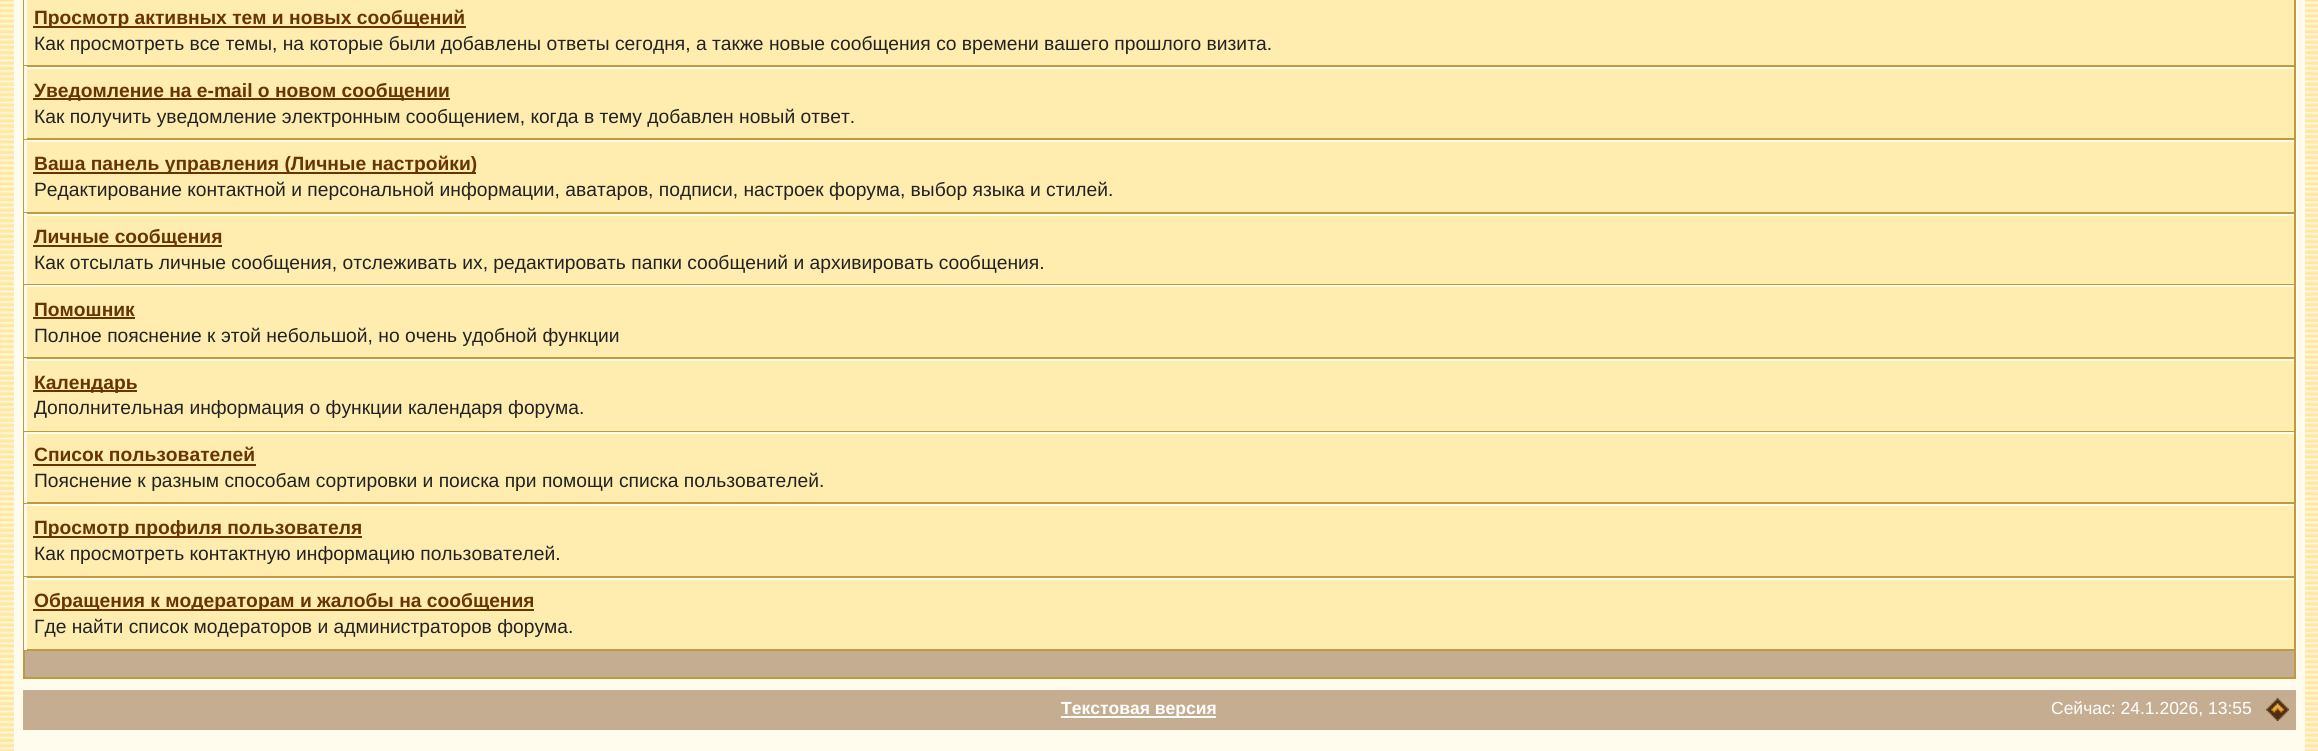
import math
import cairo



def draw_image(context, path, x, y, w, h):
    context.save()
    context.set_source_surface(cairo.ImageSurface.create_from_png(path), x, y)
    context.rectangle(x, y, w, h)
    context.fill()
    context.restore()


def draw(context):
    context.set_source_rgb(1, 231 / 255, 153 / 255)
    context.paint()
    draw_image(context, "images/1.png", 0, 1, 2318, 750)
    context.set_source_rgb(1, 251 / 255, 237 / 255)
    context.rectangle(14, 0, 2291, 751)
    context.fill()
    context.set_source_rgb(192 / 255, 154 / 255, 63 / 255)
    context.rectangle(23, 0, 2273, 679)
    context.fill()
    context.set_source_rgb(1, 237 / 255, 176 / 255)
    context.rectangle(27, 0, 2267, 65)
    context.fill()
    context.set_source_rgb(1, 251 / 255, 235 / 255)
    context.rectangle(24, 0, 3, 65)
    context.fill()
    context.set_source_rgb(104 / 255, 53 / 255, 0)
    context.rectangle(33, 26, 433, 2)
    context.fill()
    context.set_source_rgb(1, 237 / 255, 176 / 255)
    context.rectangle(27, 69, 2267, 69)
    context.fill()
    context.set_source_rgb(1, 251 / 255, 235 / 255)
    context.rectangle(24, 66, 3, 73)
    context.fill()
    context.rectangle(25, 67, 2269, 2)
    context.fill()
    context.set_source_rgb(104 / 255, 53 / 255, 0)
    context.rectangle(33, 98, 417, 2)
    context.fill()
    context.set_source_rgb(1, 237 / 255, 176 / 255)
    context.rectangle(27, 142, 2267, 70)
    context.fill()
    context.set_source_rgb(1, 251 / 255, 235 / 255)
    context.rectangle(24, 140, 3, 72)
    context.fill()
    context.rectangle(25, 140, 2269, 2)
    context.fill()
    context.set_source_rgb(104 / 255, 53 / 255, 0)
    context.rectangle(33, 172, 443, 2)
    context.fill()
    context.set_source_rgb(1, 237 / 255, 176 / 255)
    context.rectangle(27, 216, 2267, 68)
    context.fill()
    context.set_source_rgb(1, 251 / 255, 235 / 255)
    context.rectangle(24, 213, 3, 71)
    context.fill()
    context.rectangle(25, 214, 2269, 2)
    context.fill()
    context.set_source_rgb(104 / 255, 53 / 255, 0)
    context.rectangle(33, 245, 189, 2)
    context.fill()
    context.set_source_rgb(1, 237 / 255, 176 / 255)
    context.rectangle(27, 287, 2267, 70)
    context.fill()
    context.set_source_rgb(1, 251 / 255, 235 / 255)
    context.rectangle(24, 285, 3, 72)
    context.fill()
    context.rectangle(25, 285, 2269, 2)
    context.fill()
    context.set_source_rgb(104 / 255, 53 / 255, 0)
    context.rectangle(33, 317, 102, 2)
    context.fill()
    context.set_source_rgb(1, 237 / 255, 176 / 255)
    context.rectangle(27, 361, 2267, 70)
    context.fill()
    context.set_source_rgb(1, 251 / 255, 235 / 255)
    context.rectangle(24, 358, 3, 73)
    context.fill()
    context.rectangle(25, 359, 2269, 2)
    context.fill()
    context.set_source_rgb(104 / 255, 53 / 255, 0)
    context.rectangle(33, 390, 104, 2)
    context.fill()
    context.set_source_rgb(1, 237 / 255, 176 / 255)
    context.rectangle(27, 434, 2267, 68)
    context.fill()
    context.set_source_rgb(1, 251 / 255, 235 / 255)
    context.rectangle(24, 432, 3, 71)
    context.fill()
    context.rectangle(25, 432, 2269, 2)
    context.fill()
    context.set_source_rgb(104 / 255, 53 / 255, 0)
    context.rectangle(33, 464, 223, 2)
    context.fill()
    context.set_source_rgb(1, 237 / 255, 176 / 255)
    context.rectangle(27, 506, 2267, 70)
    context.fill()
    context.set_source_rgb(1, 251 / 255, 235 / 255)
    context.rectangle(24, 504, 3, 72)
    context.fill()
    context.rectangle(25, 504, 2269, 2)
    context.fill()
    context.set_source_rgb(104 / 255, 53 / 255, 0)
    context.rectangle(33, 536, 329, 2)
    context.fill()
    context.set_source_rgb(1, 237 / 255, 176 / 255)
    context.rectangle(27, 580, 2267, 69)
    context.fill()
    context.set_source_rgb(1, 251 / 255, 235 / 255)
    context.rectangle(24, 577, 3, 73)
    context.fill()
    context.rectangle(25, 578, 2269, 2)
    context.fill()
    context.set_source_rgb(104 / 255, 53 / 255, 0)
    context.rectangle(33, 609, 501, 2)
    context.fill()
    context.set_source_rgb(197 / 255, 173 / 255, 146 / 255)
    context.rectangle(25, 651, 2269, 26)
    context.fill()
    context.rectangle(23, 690, 2273, 40)
    context.fill()
    context.set_source_rgb(1, 1, 1)
    context.rectangle(1061, 716, 155, 2)
    context.fill()
    draw_image(context, "images/2.png", 2266, 698, 23, 23)
    context.select_font_face("Liberation Sans", cairo.FontSlant.NORMAL, cairo.FontWeight.BOLD)
    context.set_font_size(19.25)
    context.set_source_rgb(104 / 255, 53 / 255, 0)
    context.move_to(34, 24)
    context.show_text("Просмотр активных тем и новых сообщений")
    context.select_font_face("Liberation Sans")
    context.set_source_rgb(34 / 255, 34 / 255, 34 / 255)
    context.move_to(34, 50)
    context.show_text("Как просмотреть все темы, на которые были добавлены ответы сегодня, а также новые сообщения со времени вашего прошлого визита.")
    context.select_font_face("Liberation Sans", cairo.FontSlant.NORMAL, cairo.FontWeight.BOLD)
    context.set_source_rgb(104 / 255, 53 / 255, 0)
    context.move_to(34, 97)
    context.show_text("Уведомление на е-mail о новом сообщении")
    context.select_font_face("Liberation Sans")
    context.set_source_rgb(34 / 255, 34 / 255, 34 / 255)
    context.move_to(34, 123)
    context.show_text("Как получить уведомление электронным сообщением, когда в тему добавлен новый ответ.")
    context.select_font_face("Liberation Sans", cairo.FontSlant.NORMAL, cairo.FontWeight.BOLD)
    context.set_source_rgb(104 / 255, 53 / 255, 0)
    context.move_to(34, 170)
    context.show_text("Ваша панель управления (Личные настройки)")
    context.select_font_face("Liberation Sans")
    context.set_source_rgb(34 / 255, 34 / 255, 34 / 255)
    context.move_to(34, 196)
    context.show_text("Редактирование контактной и персональной информации, аватаров, подписи, настроек форума, выбор языка и стилей.")
    context.select_font_face("Liberation Sans", cairo.FontSlant.NORMAL, cairo.FontWeight.BOLD)
    context.set_source_rgb(104 / 255, 53 / 255, 0)
    context.move_to(34, 243)
    context.show_text("Личные сообщения")
    context.select_font_face("Liberation Sans")
    context.set_source_rgb(34 / 255, 34 / 255, 34 / 255)
    context.move_to(34, 269)
    context.show_text("Как отсылать личные сообщения, отслеживать их, редактировать папки сообщений и архивировать сообщения.")
    context.select_font_face("Liberation Sans", cairo.FontSlant.NORMAL, cairo.FontWeight.BOLD)
    context.set_source_rgb(104 / 255, 53 / 255, 0)
    context.move_to(34, 316)
    context.show_text("Помошник")
    context.select_font_face("Liberation Sans")
    context.set_source_rgb(34 / 255, 34 / 255, 34 / 255)
    context.move_to(34, 342)
    context.show_text("Полное пояснение к этой небольшой, но очень удобной функции")
    context.select_font_face("Liberation Sans", cairo.FontSlant.NORMAL, cairo.FontWeight.BOLD)
    context.set_source_rgb(104 / 255, 53 / 255, 0)
    context.move_to(34, 389)
    context.show_text("Календарь")
    context.select_font_face("Liberation Sans")
    context.set_source_rgb(34 / 255, 34 / 255, 34 / 255)
    context.move_to(34, 414)
    context.show_text("Дополнительная информация о функции календаря форума.")
    context.select_font_face("Liberation Sans", cairo.FontSlant.NORMAL, cairo.FontWeight.BOLD)
    context.set_source_rgb(104 / 255, 53 / 255, 0)
    context.move_to(34, 461)
    context.show_text("Список пользователей")
    context.select_font_face("Liberation Sans")
    context.set_source_rgb(34 / 255, 34 / 255, 34 / 255)
    context.move_to(34, 487)
    context.show_text("Пояснение к разным способам сортировки и поиска при помощи списка пользователей.")
    context.select_font_face("Liberation Sans", cairo.FontSlant.NORMAL, cairo.FontWeight.BOLD)
    context.set_source_rgb(104 / 255, 53 / 255, 0)
    context.move_to(34, 534)
    context.show_text("Просмотр профиля пользователя")
    context.select_font_face("Liberation Sans")
    context.set_source_rgb(34 / 255, 34 / 255, 34 / 255)
    context.move_to(34, 560)
    context.show_text("Как просмотреть контактную информацию пользователей.")
    context.select_font_face("Liberation Sans", cairo.FontSlant.NORMAL, cairo.FontWeight.BOLD)
    context.set_source_rgb(104 / 255, 53 / 255, 0)
    context.move_to(34, 607)
    context.show_text("Обращения к модераторам и жалобы на сообщения")
    context.select_font_face("Liberation Sans")
    context.set_source_rgb(34 / 255, 34 / 255, 34 / 255)
    context.move_to(34, 633)
    context.show_text("Где найти список модераторов и администраторов форума.")
    context.select_font_face("Liberation Sans", cairo.FontSlant.NORMAL, cairo.FontWeight.BOLD)
    context.set_font_size(17.5)
    context.set_source_rgb(1, 1, 1)
    context.move_to(1061, 714)
    context.show_text("Текстовая версия")
    context.select_font_face("Liberation Sans")
    context.move_to(2051, 714)
    context.show_text("Сейчас: 24.1.2026, 13:55")


surface = cairo.ImageSurface(cairo.Format.RGB24, 2318, 751)
context = cairo.Context(surface)
options = cairo.FontOptions()
options.set_hint_metrics(cairo.HintMetrics.OFF)
options.set_hint_style(cairo.HintStyle.NONE)
context.set_font_options(options)
context.set_miter_limit(4)
draw(context)
surface.write_to_png("out.png")
